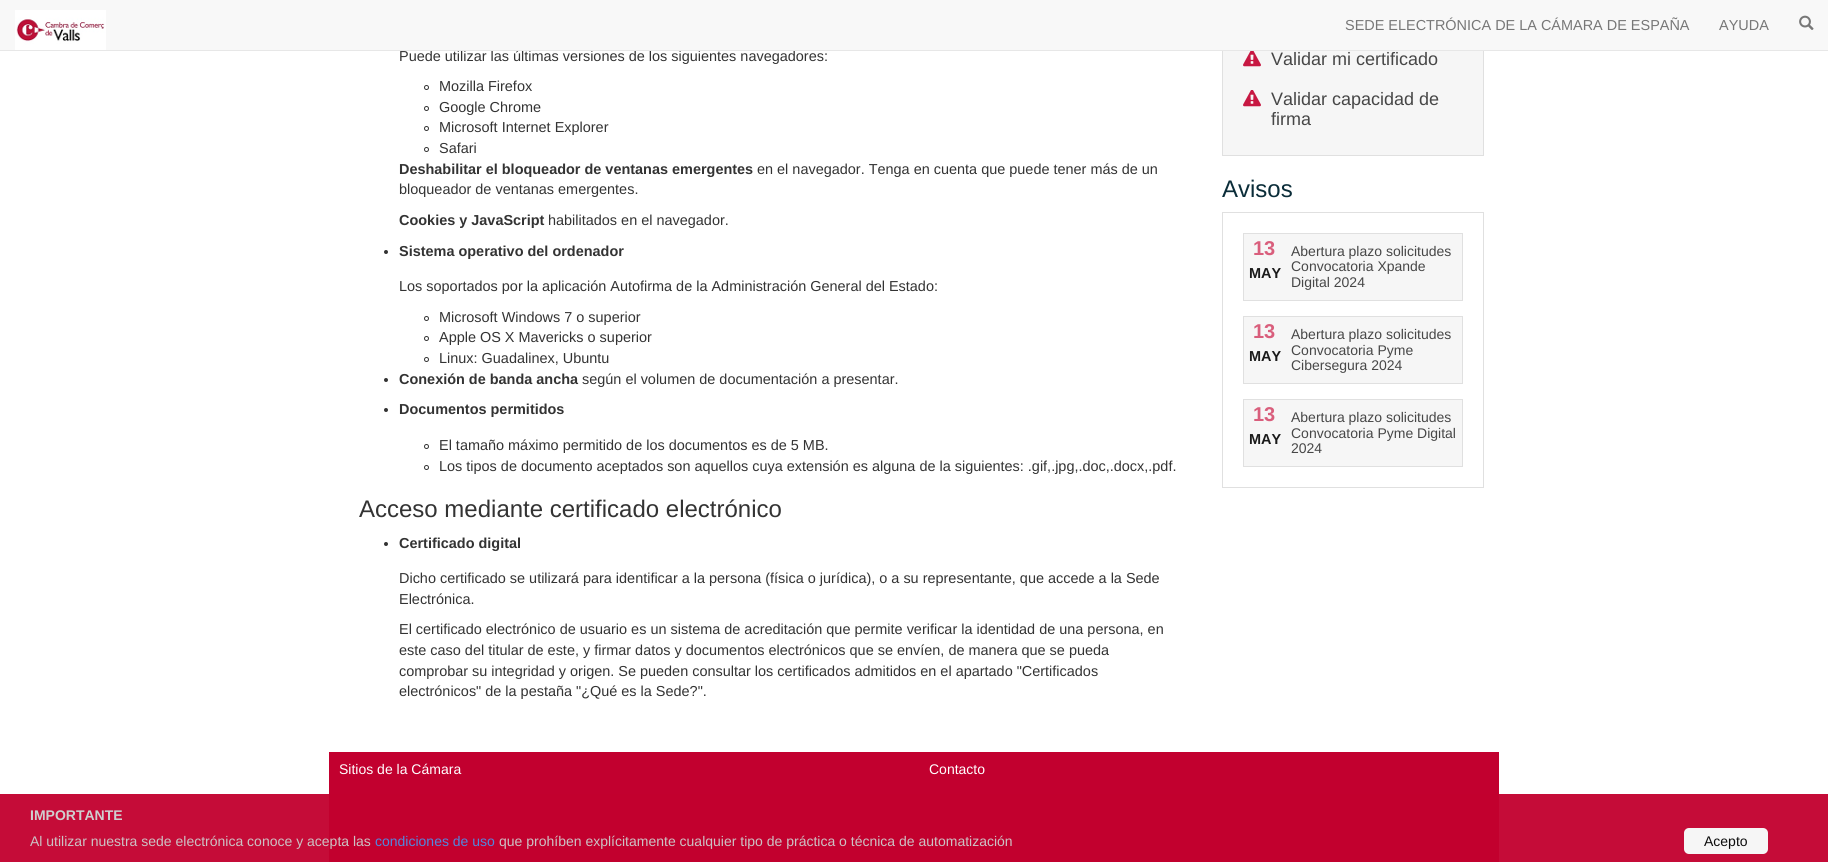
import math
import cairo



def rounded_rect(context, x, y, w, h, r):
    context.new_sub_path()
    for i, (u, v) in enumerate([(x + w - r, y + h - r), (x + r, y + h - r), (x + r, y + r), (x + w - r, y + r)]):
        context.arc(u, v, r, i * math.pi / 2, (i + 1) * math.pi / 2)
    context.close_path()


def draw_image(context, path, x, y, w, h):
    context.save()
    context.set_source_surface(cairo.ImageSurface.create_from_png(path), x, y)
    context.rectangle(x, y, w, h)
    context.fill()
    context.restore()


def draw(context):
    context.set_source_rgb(1, 1, 1)
    context.paint()
    context.set_source_rgb(246 / 255, 246 / 255, 246 / 255)
    context.rectangle(1223, 51, 260, 104)
    context.fill()
    context.rectangle(1222.5, -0.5, 261, 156)
    context.set_source_rgb(224 / 255, 224 / 255, 224 / 255)
    context.set_line_width(1)
    context.stroke()
    context.set_source_rgb(248 / 255, 248 / 255, 248 / 255)
    context.rectangle(0, 0, 1828, 50)
    context.fill()
    draw_image(context, "images/1.png", 15, 10, 91, 40)
    draw_image(context, "images/2.png", 1799, 15, 15, 15)
    context.arc(426.5, 87.5, 2, 0, 2 * math.pi)
    context.set_source_rgb(51 / 255, 51 / 255, 51 / 255)
    context.stroke()
    context.arc(426.5, 108.5, 2, 0, 2 * math.pi)
    context.stroke()
    context.arc(426.5, 128.5, 2, 0, 2 * math.pi)
    context.stroke()
    context.arc(426.5, 149.5, 2, 0, 2 * math.pi)
    context.stroke()
    context.arc(386, 252, 2, 0, 2 * math.pi)
    context.fill()
    context.arc(426.5, 318.5, 2, 0, 2 * math.pi)
    context.stroke()
    context.arc(426.5, 338.5, 2, 0, 2 * math.pi)
    context.stroke()
    context.arc(426.5, 359.5, 2, 0, 2 * math.pi)
    context.stroke()
    context.arc(386, 380, 2, 0, 2 * math.pi)
    context.fill()
    context.arc(386, 410, 2, 0, 2 * math.pi)
    context.fill()
    context.arc(426.5, 446.5, 2, 0, 2 * math.pi)
    context.stroke()
    context.arc(426.5, 467.5, 2, 0, 2 * math.pi)
    context.stroke()
    context.arc(386, 544, 2, 0, 2 * math.pi)
    context.fill()
    draw_image(context, "images/3.png", 1243, 51, 18, 16)
    draw_image(context, "images/4.png", 1243, 90, 18, 17)
    context.rectangle(1222.5, 212.5, 261, 275)
    context.set_source_rgb(224 / 255, 224 / 255, 224 / 255)
    context.stroke()
    context.set_source_rgb(246 / 255, 246 / 255, 246 / 255)
    context.rectangle(1243.5, 233.5, 219, 67)
    context.fill_preserve()
    context.set_source_rgb(224 / 255, 224 / 255, 224 / 255)
    context.stroke()
    context.set_source_rgb(246 / 255, 246 / 255, 246 / 255)
    context.rectangle(1243.5, 316.5, 219, 67)
    context.fill_preserve()
    context.set_source_rgb(224 / 255, 224 / 255, 224 / 255)
    context.stroke()
    context.set_source_rgb(246 / 255, 246 / 255, 246 / 255)
    context.rectangle(1243.5, 399.5, 219, 67)
    context.fill_preserve()
    context.set_source_rgb(224 / 255, 224 / 255, 224 / 255)
    context.stroke()
    context.set_source_rgb(194 / 255, 0, 47 / 255)
    context.rectangle(329, 752, 1170, 110)
    context.fill()
    context.set_source_rgba(194 / 255, 0, 47 / 255, 0.95)
    context.rectangle(0, 794, 1828, 68)
    context.fill()
    context.set_source_rgb(246 / 255, 246 / 255, 246 / 255)
    rounded_rect(context, 1684, 828, 84, 26, 5)
    context.fill()
    context.select_font_face("Liberation Sans")
    context.set_font_size(14.45)
    context.set_source_rgb(119 / 255, 119 / 255, 119 / 255)
    context.move_to(1345, 30)
    context.show_text("SEDE ELECTRÓNICA DE LA CÁMARA DE ESPAÑA")
    context.move_to(1719, 30)
    context.show_text("AYUDA")
    context.set_source_rgb(51 / 255, 51 / 255, 51 / 255)
    context.move_to(399, 61)
    context.show_text("Puede utilizar las últimas versiones de los siguientes navegadores:")
    context.set_source_rgb(231 / 255, 231 / 255, 231 / 255)
    context.rectangle(0, 50, 1828, 1)
    context.fill()
    context.set_source_rgb(51 / 255, 51 / 255, 51 / 255)
    context.move_to(439, 91)
    context.show_text("Mozilla Firefox")
    context.move_to(439, 112)
    context.show_text("Google Chrome")
    context.move_to(439, 132)
    context.show_text("Microsoft Internet Explorer")
    context.move_to(439, 153)
    context.show_text("Safari")
    context.select_font_face("Liberation Sans", cairo.FontSlant.NORMAL, cairo.FontWeight.BOLD)
    context.move_to(399, 174)
    context.show_text("Deshabilitar el bloqueador de ventanas emergentes")
    context.select_font_face("Liberation Sans")
    context.move_to(757, 174)
    context.show_text("en el navegador. Tenga en cuenta que puede tener más de un")
    context.move_to(399, 194)
    context.show_text("bloqueador de ventanas emergentes.")
    context.select_font_face("Liberation Sans", cairo.FontSlant.NORMAL, cairo.FontWeight.BOLD)
    context.move_to(399, 225)
    context.show_text("Cookies y JavaScript")
    context.select_font_face("Liberation Sans")
    context.move_to(548, 225)
    context.show_text("habilitados en el navegador.")
    context.select_font_face("Liberation Sans", cairo.FontSlant.NORMAL, cairo.FontWeight.BOLD)
    context.move_to(399, 256)
    context.show_text("Sistema operativo del ordenador")
    context.select_font_face("Liberation Sans")
    context.move_to(399, 291)
    context.show_text("Los soportados por la aplicación Autofirma de la Administración General del Estado:")
    context.move_to(439, 322)
    context.show_text("Microsoft Windows 7 o superior")
    context.move_to(439, 342)
    context.show_text("Apple OS X Mavericks o superior")
    context.move_to(439, 363)
    context.show_text("Linux: Guadalinex, Ubuntu")
    context.select_font_face("Liberation Sans", cairo.FontSlant.NORMAL, cairo.FontWeight.BOLD)
    context.move_to(399, 384)
    context.show_text("Conexión de banda ancha")
    context.select_font_face("Liberation Sans")
    context.move_to(582, 384)
    context.show_text("según el volumen de documentación a presentar.")
    context.select_font_face("Liberation Sans", cairo.FontSlant.NORMAL, cairo.FontWeight.BOLD)
    context.move_to(399, 414)
    context.show_text("Documentos permitidos")
    context.select_font_face("Liberation Sans")
    context.move_to(439, 450)
    context.show_text("El tamaño máximo permitido de los documentos es de 5 MB.")
    context.move_to(439, 471)
    context.show_text("Los tipos de documento aceptados son aquellos cuya extensión es alguna de la siguientes: .gif,.jpg,.doc,.docx,.pdf.")
    context.set_font_size(24)
    context.move_to(359, 517)
    context.show_text("Acceso mediante certificado electrónico")
    context.select_font_face("Liberation Sans", cairo.FontSlant.NORMAL, cairo.FontWeight.BOLD)
    context.set_font_size(14.45)
    context.move_to(399, 548)
    context.show_text("Certificado digital")
    context.select_font_face("Liberation Sans")
    context.move_to(399, 583)
    context.show_text("Dicho certificado se utilizará para identificar a la persona (física o jurídica), o a su representante, que accede a la Sede")
    context.move_to(399, 604)
    context.show_text("Electrónica.")
    context.move_to(399, 634)
    context.show_text("El certificado electrónico de usuario es un sistema de acreditación que permite verificar la identidad de una persona, en")
    context.move_to(399, 655)
    context.show_text("este caso del titular de este, y firmar datos y documentos electrónicos que se envíen, de manera que se pueda")
    context.move_to(399, 676)
    context.show_text("comprobar su integridad y origen. Se pueden consultar los certificados admitidos en el apartado \"Certificados")
    context.move_to(399, 696)
    context.show_text("electrónicos\" de la pestaña \"¿Qué es la Sede?\".")
    context.set_font_size(18)
    context.set_source_rgb(71 / 255, 71 / 255, 71 / 255)
    context.move_to(1271, 65)
    context.show_text("Validar mi certificado")
    context.move_to(1271, 105)
    context.show_text("Validar capacidad de")
    context.move_to(1271, 125)
    context.show_text("firma")
    context.set_font_size(24)
    context.set_source_rgb(11 / 255, 45 / 255, 57 / 255)
    context.move_to(1222, 197)
    context.show_text("Avisos")
    context.select_font_face("Liberation Sans", cairo.FontSlant.NORMAL, cairo.FontWeight.BOLD)
    context.set_font_size(20)
    context.set_source_rgb(217 / 255, 94 / 255, 124 / 255)
    context.move_to(1253, 255)
    context.show_text("13")
    context.set_font_size(14.45)
    context.set_source_rgb(26 / 255, 26 / 255, 26 / 255)
    context.move_to(1249, 278)
    context.show_text("MAY")
    context.select_font_face("Liberation Sans")
    context.set_font_size(14)
    context.set_source_rgb(71 / 255, 71 / 255, 71 / 255)
    context.move_to(1291, 256)
    context.show_text("Abertura plazo solicitudes")
    context.move_to(1291, 271)
    context.show_text("Convocatoria Xpande")
    context.move_to(1291, 287)
    context.show_text("Digital 2024")
    context.select_font_face("Liberation Sans", cairo.FontSlant.NORMAL, cairo.FontWeight.BOLD)
    context.set_font_size(20)
    context.set_source_rgb(217 / 255, 94 / 255, 124 / 255)
    context.move_to(1253, 338)
    context.show_text("13")
    context.set_font_size(14.45)
    context.set_source_rgb(26 / 255, 26 / 255, 26 / 255)
    context.move_to(1249, 361)
    context.show_text("MAY")
    context.select_font_face("Liberation Sans")
    context.set_font_size(14)
    context.set_source_rgb(71 / 255, 71 / 255, 71 / 255)
    context.move_to(1291, 339)
    context.show_text("Abertura plazo solicitudes")
    context.move_to(1291, 355)
    context.show_text("Convocatoria Pyme")
    context.move_to(1291, 370)
    context.show_text("Cibersegura 2024")
    context.select_font_face("Liberation Sans", cairo.FontSlant.NORMAL, cairo.FontWeight.BOLD)
    context.set_font_size(20)
    context.set_source_rgb(217 / 255, 94 / 255, 124 / 255)
    context.move_to(1253, 421)
    context.show_text("13")
    context.set_font_size(14.45)
    context.set_source_rgb(26 / 255, 26 / 255, 26 / 255)
    context.move_to(1249, 444)
    context.show_text("MAY")
    context.select_font_face("Liberation Sans")
    context.set_font_size(14)
    context.set_source_rgb(71 / 255, 71 / 255, 71 / 255)
    context.move_to(1291, 422)
    context.show_text("Abertura plazo solicitudes")
    context.move_to(1291, 438)
    context.show_text("Convocatoria Pyme Digital")
    context.move_to(1291, 453)
    context.show_text("2024")
    context.set_source_rgb(1, 1, 1)
    context.move_to(339, 774)
    context.show_text("Sitios de la Cámara")
    context.move_to(929, 774)
    context.show_text("Contacto")
    context.select_font_face("Liberation Sans", cairo.FontSlant.NORMAL, cairo.FontWeight.BOLD)
    context.set_source_rgb(207 / 255, 207 / 255, 207 / 255)
    context.move_to(30, 820)
    context.show_text("IMPORTANTE")
    context.select_font_face("Liberation Sans")
    context.set_source_rgb(204 / 255, 194 / 255, 196 / 255)
    context.move_to(30, 846)
    context.show_text("Al utilizar nuestra sede electrónica conoce y acepta las")
    context.set_source_rgb(81 / 255, 135 / 255, 222 / 255)
    context.move_to(375, 846)
    context.show_text("condiciones de uso")
    context.set_source_rgb(204 / 255, 194 / 255, 196 / 255)
    context.move_to(499, 846)
    context.show_text("que prohíben explícitamente cualquier tipo de práctica o técnica de automatización")
    context.set_source_rgb(13 / 255, 13 / 255, 13 / 255)
    context.move_to(1704, 846)
    context.show_text("Acepto")


surface = cairo.ImageSurface(cairo.Format.RGB24, 1828, 862)
context = cairo.Context(surface)
options = cairo.FontOptions()
options.set_hint_metrics(cairo.HintMetrics.OFF)
options.set_hint_style(cairo.HintStyle.NONE)
context.set_font_options(options)
context.set_miter_limit(4)
draw(context)
surface.write_to_png("out.png")
